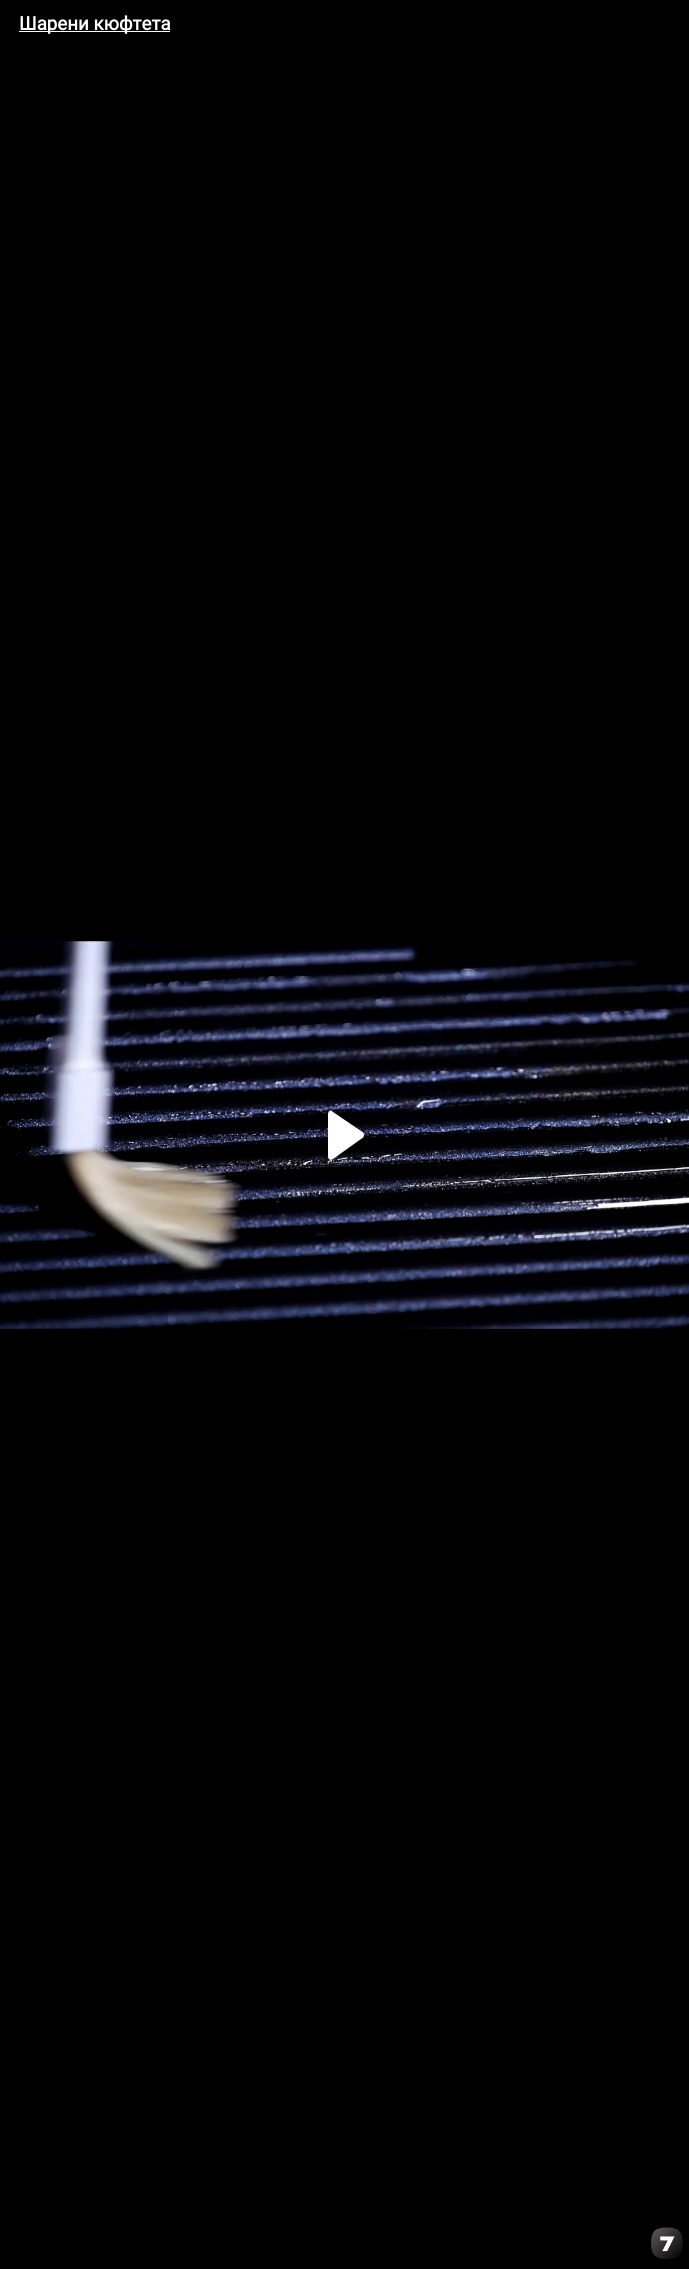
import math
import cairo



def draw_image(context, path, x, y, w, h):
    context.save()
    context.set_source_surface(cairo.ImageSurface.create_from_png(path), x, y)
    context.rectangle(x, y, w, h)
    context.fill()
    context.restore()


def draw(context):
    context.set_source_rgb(0, 0, 0)
    context.paint()
    context.set_source_rgb(1, 1, 1)
    context.rectangle(19, 31, 151, 1)
    context.fill()
    draw_image(context, "images/1.png", 0, 941, 689, 388)
    context.new_path()
    context.move_to(361, 1131)
    context.curve_to(365, 1133, 365, 1137, 361, 1139)
    context.line_to(333, 1159)
    context.curve_to(330, 1161, 328, 1159, 328, 1156)
    context.line_to(328, 1115)
    context.curve_to(328, 1111, 330, 1109, 333, 1112)
    context.close_path()
    context.fill()
    draw_image(context, "images/2.png", 651, 2227, 32, 32)
    context.select_font_face("Roboto", cairo.FontSlant.NORMAL, cairo.FontWeight.BOLD)
    context.set_font_size(18.75)
    context.move_to(19, 30)
    context.show_text("Шарени кюфтета")


surface = cairo.ImageSurface(cairo.Format.RGB24, 689, 2269)
context = cairo.Context(surface)
options = cairo.FontOptions()
options.set_hint_metrics(cairo.HintMetrics.OFF)
options.set_hint_style(cairo.HintStyle.NONE)
context.set_font_options(options)
context.set_miter_limit(4)
draw(context)
surface.write_to_png("out.png")
